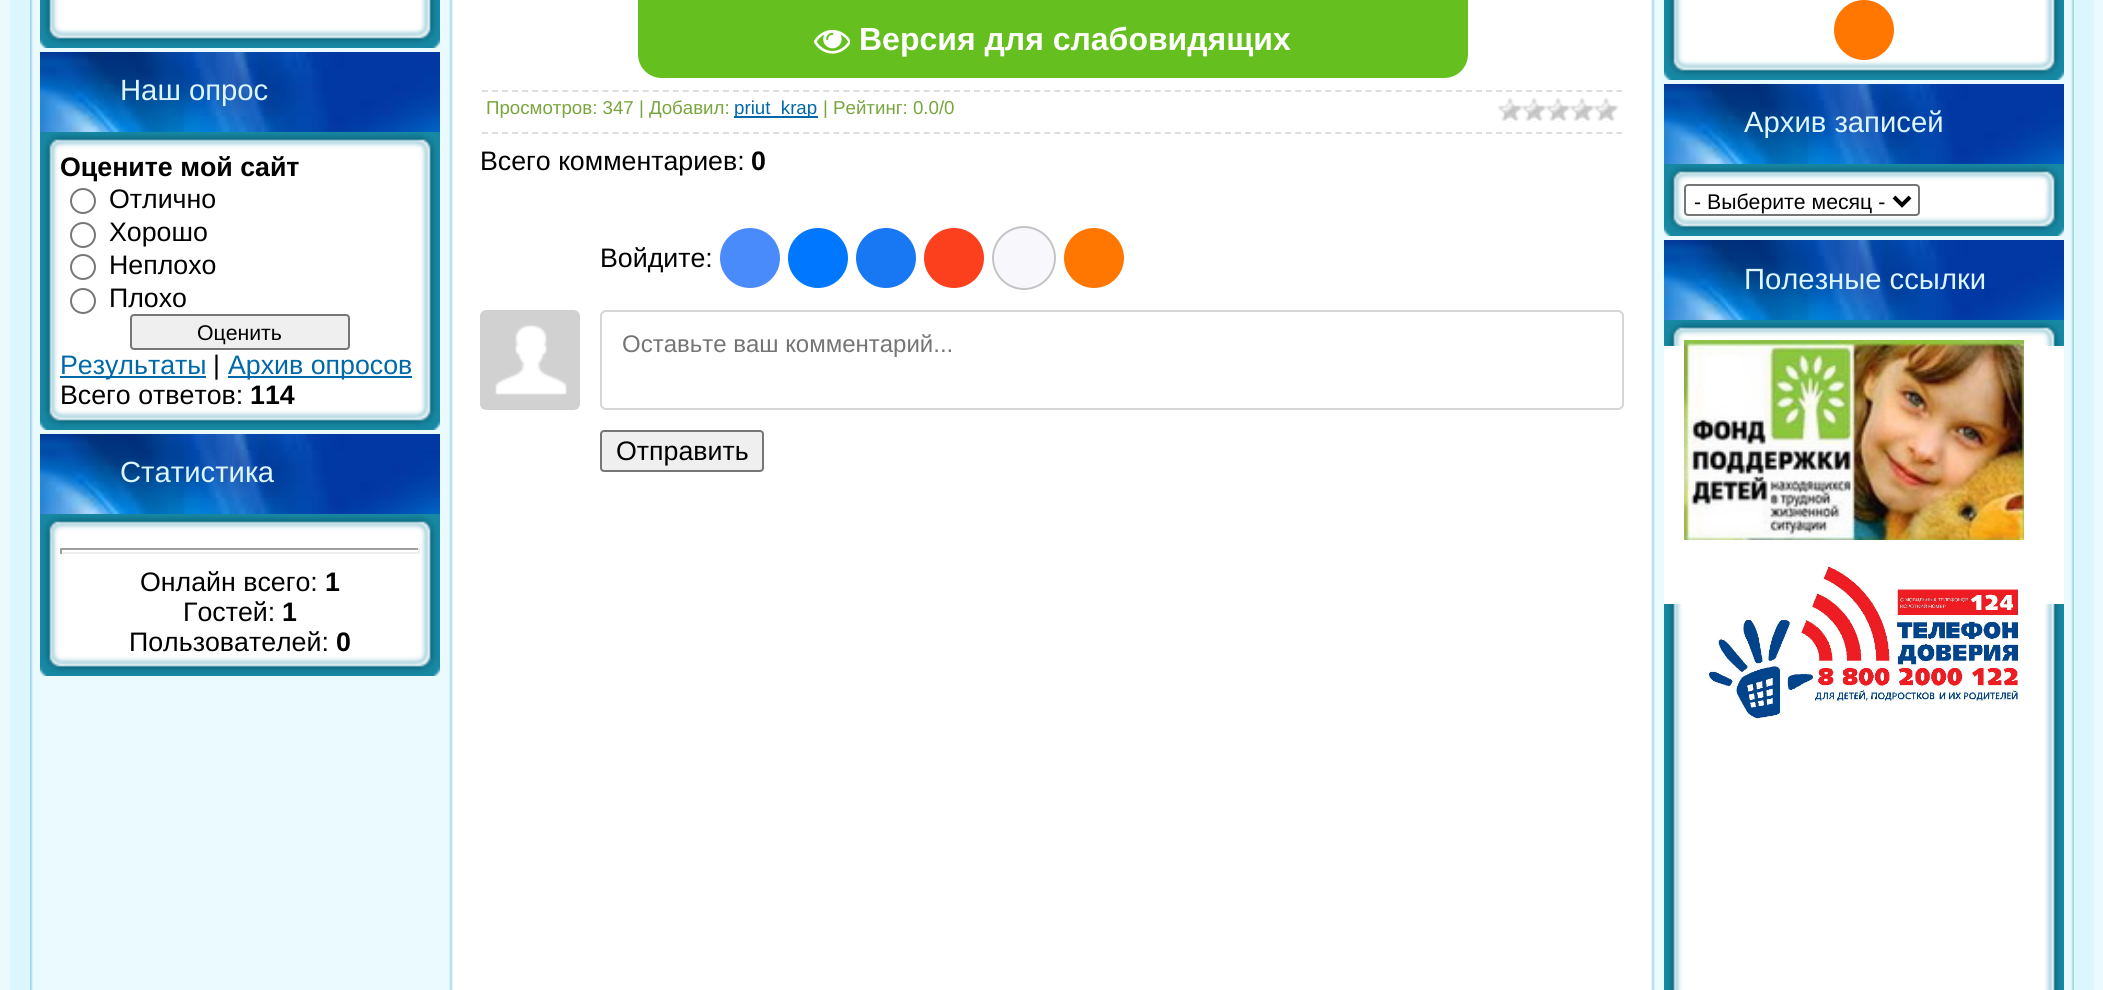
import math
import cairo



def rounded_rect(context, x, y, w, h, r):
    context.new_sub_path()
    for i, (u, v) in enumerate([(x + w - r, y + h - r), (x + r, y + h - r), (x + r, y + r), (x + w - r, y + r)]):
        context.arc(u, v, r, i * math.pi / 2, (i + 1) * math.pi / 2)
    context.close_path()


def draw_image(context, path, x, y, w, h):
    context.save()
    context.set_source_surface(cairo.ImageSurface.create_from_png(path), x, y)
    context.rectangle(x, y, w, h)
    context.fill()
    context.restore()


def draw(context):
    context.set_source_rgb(235 / 255, 250 / 255, 1)
    context.paint()
    context.set_source_rgb(220 / 255, 246 / 255, 1)
    context.rectangle(10, 0, 2084, 990)
    context.fill()
    context.set_source_rgb(1, 1, 1)
    context.rectangle(460, 0, 1184, 990)
    context.fill()
    context.set_source_rgb(100 / 255, 191 / 255, 31 / 255)
    context.new_path()
    context.move_to(638, 0)
    context.line_to(1468, 0)
    context.line_to(1468, 54)
    context.curve_to(1468, 67.5, 1457.5, 78, 1444, 78)
    context.line_to(662, 78)
    context.curve_to(648.5, 78, 638, 67.5, 638, 54)
    context.close_path()
    context.fill()
    draw_image(context, "images/1.png", 814, 29, 36, 25)
    draw_image(context, "images/2.png", 30, 0, 430, 990)
    draw_image(context, "images/3.png", 40, 0, 400, 48)
    draw_image(context, "images/4.png", 40, 132, 400, 298)
    draw_image(context, "images/5.png", 40, 52, 400, 80)
    draw_image(context, "images/6.png", 43, 132, 394, 26)
    context.arc(83, 201, 12, 0, 2 * math.pi)
    context.set_source_rgb(118 / 255, 118 / 255, 118 / 255)
    context.stroke()
    context.arc(83, 235, 12, 0, 2 * math.pi)
    context.stroke()
    context.arc(83, 267, 12, 0, 2 * math.pi)
    context.stroke()
    context.arc(83, 301, 12, 0, 2 * math.pi)
    context.stroke()
    context.set_source_rgb(239 / 255, 239 / 255, 239 / 255)
    rounded_rect(context, 131, 315, 218, 34, 3)
    context.fill_preserve()
    context.set_source_rgb(118 / 255, 118 / 255, 118 / 255)
    context.stroke()
    context.set_source_rgb(0, 105 / 255, 169 / 255)
    context.rectangle(60, 376, 146, 2)
    context.fill()
    context.rectangle(228, 376, 184, 2)
    context.fill()
    draw_image(context, "images/7.png", 40, 514, 400, 162)
    draw_image(context, "images/5.png", 40, 434, 400, 80)
    draw_image(context, "images/6.png", 43, 514, 394, 26)
    context.set_source_rgb(159 / 255, 159 / 255, 159 / 255)
    context.rectangle(60, 548, 360, 2)
    context.fill()
    context.set_source_rgb(238 / 255, 238 / 255, 238 / 255)
    context.rectangle(418, 548, 2, 6)
    context.fill()
    context.rectangle(60, 552, 360, 2)
    context.fill()
    context.set_source_rgb(159 / 255, 159 / 255, 159 / 255)
    context.rectangle(60, 548, 2, 6)
    context.fill()
    context.new_path()
    context.move_to(482, 91)
    context.line_to(1622, 91)
    context.set_source_rgb(221 / 255, 221 / 255, 221 / 255)
    context.set_dash([6, 4.04])
    context.stroke()
    context.new_path()
    context.move_to(482, 133)
    context.line_to(1622, 133)
    context.stroke()
    context.set_source_rgb(0, 105 / 255, 169 / 255)
    context.rectangle(734, 116, 84, 2)
    context.fill()
    draw_image(context, "images/8.png", 1498, 98, 120, 24)
    context.set_source_rgb(73 / 255, 139 / 255, 250 / 255)
    context.arc(750, 258, 30, 0, 2 * math.pi)
    context.fill()
    context.set_source_rgb(0, 119 / 255, 1)
    context.arc(818, 258, 30, 0, 2 * math.pi)
    context.fill()
    context.set_source_rgb(24 / 255, 119 / 255, 242 / 255)
    context.arc(886, 258, 30, 0, 2 * math.pi)
    context.fill()
    context.set_source_rgb(252 / 255, 63 / 255, 29 / 255)
    context.arc(954, 258, 30, 0, 2 * math.pi)
    context.fill()
    context.set_source_rgb(248 / 255, 248 / 255, 252 / 255)
    context.arc(1024, 258, 31, 0, 2 * math.pi)
    context.fill_preserve()
    context.set_source_rgb(196 / 255, 196 / 255, 196 / 255)
    context.set_dash([])
    context.stroke()
    context.set_source_rgb(1, 119 / 255, 0)
    context.arc(1094, 258, 30, 0, 2 * math.pi)
    context.fill()
    draw_image(context, "images/9.png", 480, 310, 100, 100)
    rounded_rect(context, 601, 311, 1022, 98, 5)
    context.set_source_rgb(214 / 255, 214 / 255, 214 / 255)
    context.stroke()
    context.set_source_rgb(239 / 255, 239 / 255, 239 / 255)
    rounded_rect(context, 601, 431, 162, 40, 3)
    context.fill_preserve()
    context.set_source_rgb(118 / 255, 118 / 255, 118 / 255)
    context.stroke()
    draw_image(context, "images/10.png", 1644, 0, 430, 990)
    draw_image(context, "images/11.png", 1664, 0, 400, 80)
    context.set_source_rgb(1, 119 / 255, 0)
    context.arc(1864, 30, 30, 0, 2 * math.pi)
    context.fill()
    draw_image(context, "images/12.png", 1664, 164, 400, 72)
    draw_image(context, "images/5.png", 1664, 84, 400, 80)
    draw_image(context, "images/6.png", 1667, 164, 394, 26)
    rounded_rect(context, 1685, 185, 234, 30, 3)
    context.set_source_rgb(118 / 255, 118 / 255, 118 / 255)
    context.stroke()
    context.new_path()
    context.move_to(1894, 197)
    context.line_to(1902, 205)
    context.line_to(1910, 197)
    context.set_source_rgb(0, 0, 0)
    context.set_line_width(4)
    context.stroke()
    context.set_source_rgb(1, 1, 1)
    context.rectangle(1664, 346, 400, 258)
    context.fill()
    draw_image(context, "images/13.png", 1664, 604, 400, 386)
    draw_image(context, "images/5.png", 1664, 240, 400, 80)
    draw_image(context, "images/14.png", 1664, 320, 400, 26)
    draw_image(context, "images/15.png", 1684, 340, 340, 200)
    draw_image(context, "images/16.png", 1708, 565, 312, 154)
    context.select_font_face("Liberation Sans", cairo.FontSlant.NORMAL, cairo.FontWeight.BOLD)
    context.set_font_size(32)
    context.move_to(859, 50)
    context.show_text("Версия для слабовидящих")
    context.select_font_face("Liberation Sans")
    context.set_font_size(29.25)
    context.set_source_rgb(220 / 255, 246 / 255, 1)
    context.move_to(120, 100)
    context.show_text("Наш опрос")
    context.select_font_face("Liberation Sans", cairo.FontSlant.NORMAL, cairo.FontWeight.BOLD)
    context.set_font_size(26.75)
    context.set_source_rgb(0, 0, 0)
    context.move_to(60, 176)
    context.show_text("Оцените мой сайт")
    context.select_font_face("Liberation Sans")
    context.move_to(109, 208)
    context.show_text("Отлично")
    context.move_to(109, 241)
    context.show_text("Хорошо")
    context.move_to(109, 274)
    context.show_text("Неплохо")
    context.move_to(109, 307)
    context.show_text("Плохо")
    context.set_font_size(21.25)
    context.move_to(197, 340)
    context.show_text("Оценить")
    context.set_font_size(26.75)
    context.set_source_rgb(0, 105 / 255, 169 / 255)
    context.move_to(60, 374)
    context.show_text("Результаты")
    context.set_source_rgb(0, 0, 0)
    context.move_to(213, 374)
    context.show_text("|")
    context.set_source_rgb(0, 105 / 255, 169 / 255)
    context.move_to(228, 374)
    context.show_text("Архив опросов")
    context.set_source_rgb(0, 0, 0)
    context.move_to(60, 404)
    context.show_text("Всего ответов:")
    context.select_font_face("Liberation Sans", cairo.FontSlant.NORMAL, cairo.FontWeight.BOLD)
    context.move_to(250, 404)
    context.show_text("114")
    context.select_font_face("Liberation Sans")
    context.set_font_size(29.25)
    context.set_source_rgb(220 / 255, 246 / 255, 1)
    context.move_to(120, 482)
    context.show_text("Статистика")
    context.set_font_size(26.75)
    context.set_source_rgb(0, 0, 0)
    context.move_to(140, 591)
    context.show_text("Онлайн всего:")
    context.select_font_face("Liberation Sans", cairo.FontSlant.NORMAL, cairo.FontWeight.BOLD)
    context.move_to(325, 591)
    context.show_text("1")
    context.select_font_face("Liberation Sans")
    context.move_to(183, 621)
    context.show_text("Гостей:")
    context.select_font_face("Liberation Sans", cairo.FontSlant.NORMAL, cairo.FontWeight.BOLD)
    context.move_to(282, 621)
    context.show_text("1")
    context.select_font_face("Liberation Sans")
    context.move_to(129, 651)
    context.show_text("Пользователей:")
    context.select_font_face("Liberation Sans", cairo.FontSlant.NORMAL, cairo.FontWeight.BOLD)
    context.move_to(336, 651)
    context.show_text("0")
    context.select_font_face("Liberation Sans")
    context.set_font_size(18.7)
    context.set_source_rgb(121 / 255, 165 / 255, 61 / 255)
    context.move_to(486, 114)
    context.show_text("Просмотров: 347 | Добавил:")
    context.set_source_rgb(0, 105 / 255, 169 / 255)
    context.move_to(734, 114)
    context.show_text("priut_krap")
    context.set_source_rgb(121 / 255, 165 / 255, 61 / 255)
    context.move_to(823, 114)
    context.show_text("| Рейтинг: 0.0/0")
    context.set_font_size(26.75)
    context.set_source_rgb(0, 0, 0)
    context.move_to(480, 170)
    context.show_text("Всего комментариев:")
    context.select_font_face("Liberation Sans", cairo.FontSlant.NORMAL, cairo.FontWeight.BOLD)
    context.move_to(751, 170)
    context.show_text("0")
    context.select_font_face("Liberation Sans")
    context.move_to(600, 267)
    context.show_text("Войдите:")
    context.set_font_size(24)
    context.set_source_rgb(117 / 255, 117 / 255, 117 / 255)
    context.move_to(622, 352)
    context.show_text("Оставьте ваш комментарий...")
    context.set_font_size(26.75)
    context.set_source_rgb(0, 0, 0)
    context.move_to(616, 460)
    context.show_text("Отправить")
    context.set_font_size(29.25)
    context.set_source_rgb(220 / 255, 246 / 255, 1)
    context.move_to(1744, 132)
    context.show_text("Архив записей")
    context.set_font_size(21.25)
    context.set_source_rgb(0, 0, 0)
    context.move_to(1694, 209)
    context.show_text("- Выберите месяц -")
    context.set_font_size(29.25)
    context.set_source_rgb(220 / 255, 246 / 255, 1)
    context.move_to(1744, 289)
    context.show_text("Полезные ссылки")


surface = cairo.ImageSurface(cairo.Format.RGB24, 2103, 990)
context = cairo.Context(surface)
options = cairo.FontOptions()
options.set_hint_metrics(cairo.HintMetrics.OFF)
options.set_hint_style(cairo.HintStyle.NONE)
context.set_font_options(options)
context.set_miter_limit(4)
draw(context)
surface.write_to_png("out.png")
